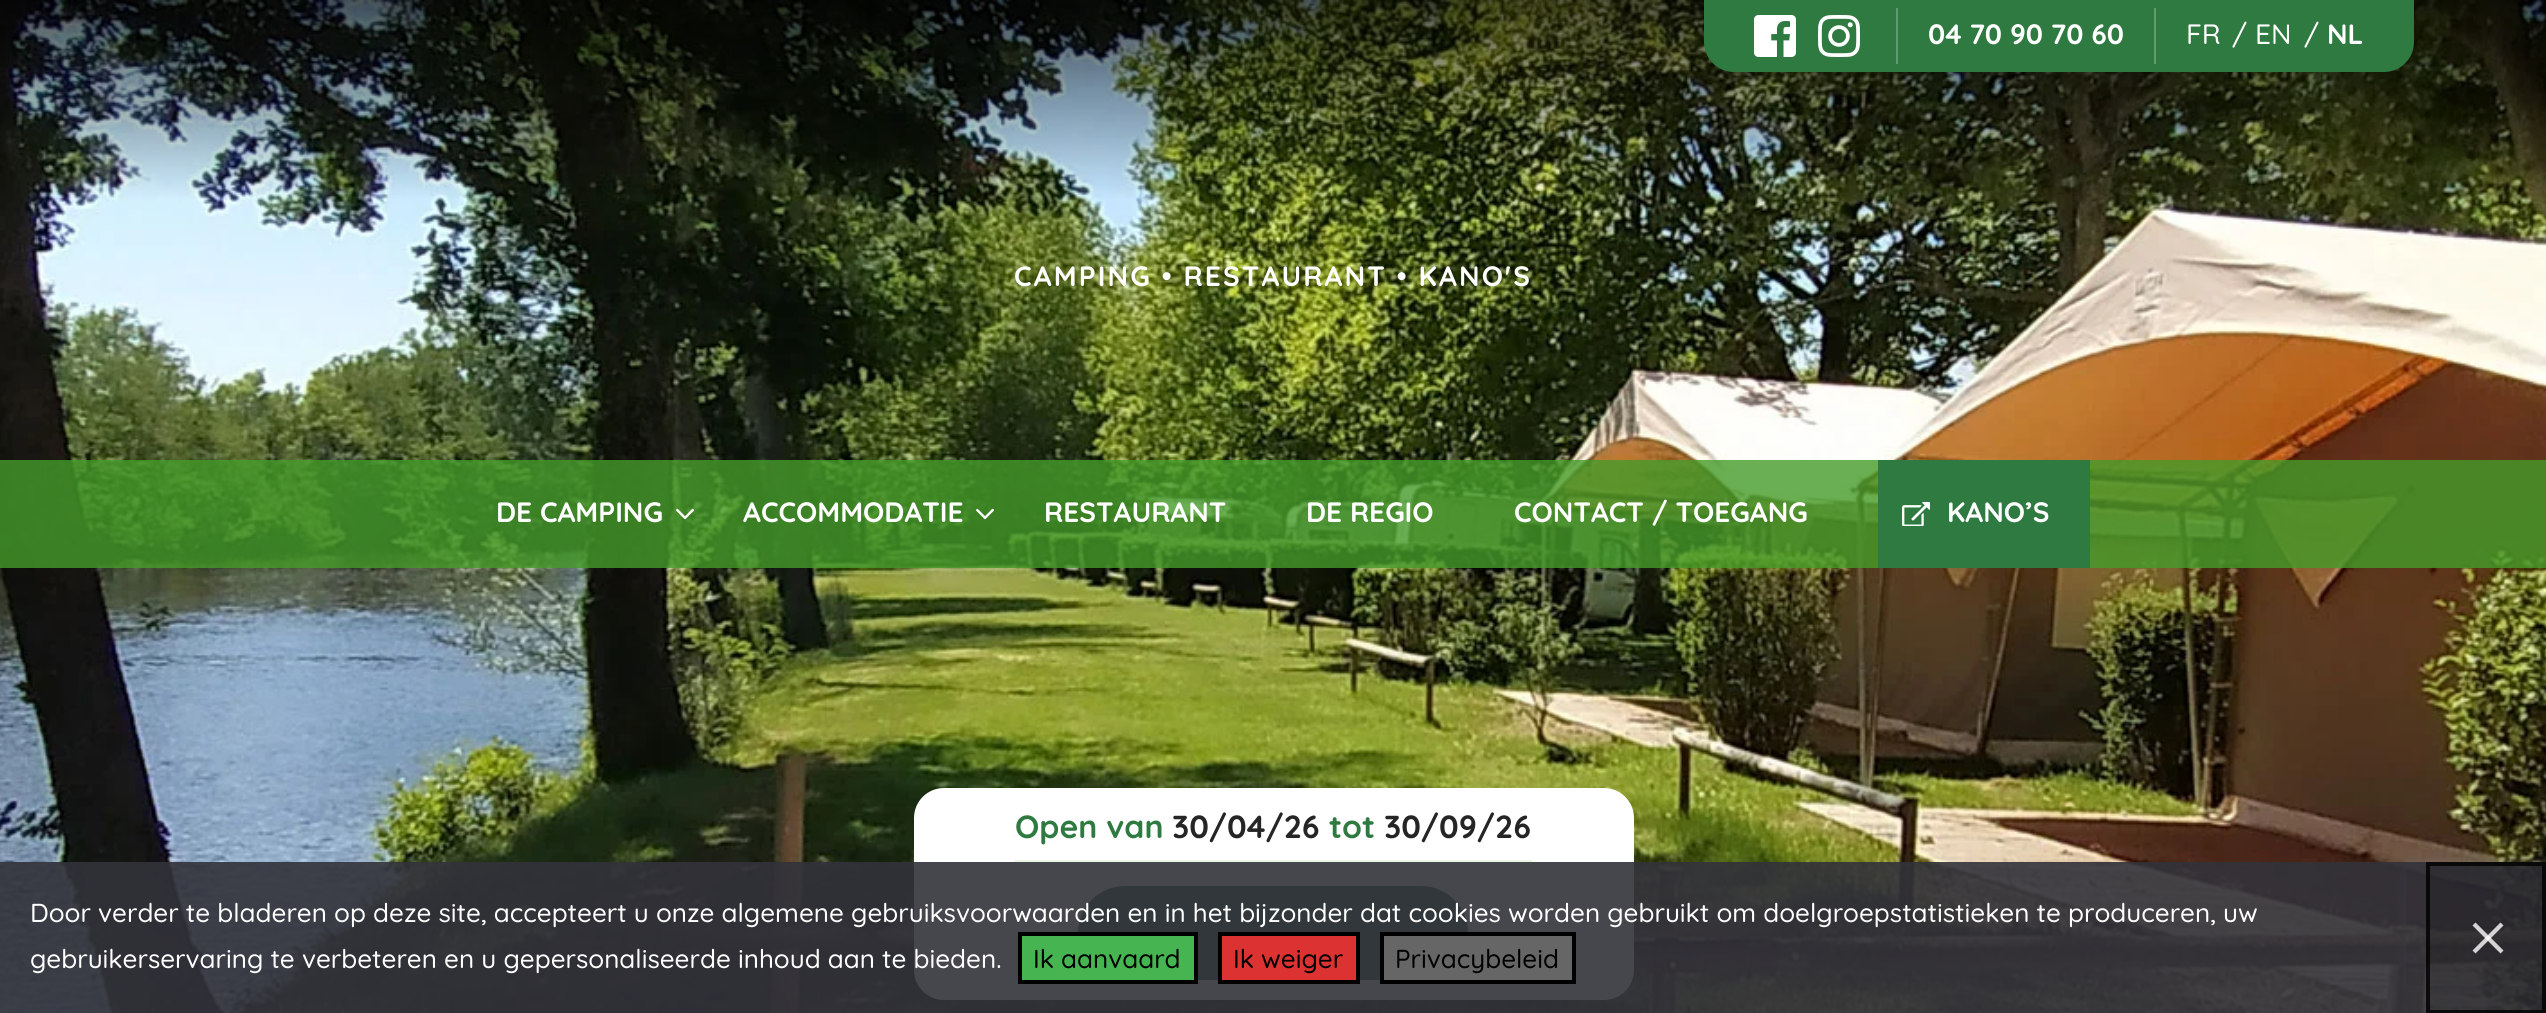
import math
import cairo



def draw_spaced(context, x, y, s, letter, word):
    context.move_to(x, y)
    for ch in s:
        context.show_text(ch)
        context.rel_move_to(letter + word * (ch == ' '), 0)


def rounded_rect(context, x, y, w, h, r):
    context.new_sub_path()
    for i, (u, v) in enumerate([(x + w - r, y + h - r), (x + r, y + h - r), (x + r, y + r), (x + w - r, y + r)]):
        context.arc(u, v, r, i * math.pi / 2, (i + 1) * math.pi / 2)
    context.close_path()


def draw_shadow(context, x, y, w, h, r, blur, alpha):
    context.push_group_with_content(cairo.Content.ALPHA)
    context.set_operator(cairo.Operator.SOURCE)
    for i in range(15, -16, -2):
        e = blur * i / 6
        if min(w, h) + 2 * e > 0:
            context.set_source_rgba(0, 0, 0, alpha * math.erfc((i - 1) / 8.5) / 2)
            rounded_rect(context, x - e, y - e, w + 2 * e, h + 2 * e, max(0, min(r + e + blur * .6, min(w, h) / 2 + e)))
            context.fill()
    context.mask(context.pop_group())


def draw_image(context, path, x, y, w, h):
    context.save()
    context.set_source_surface(cairo.ImageSurface.create_from_png(path), x, y)
    context.rectangle(x, y, w, h)
    context.fill()
    context.restore()


def draw(context):
    context.set_source_rgb(1, 1, 1)
    context.paint()
    draw_image(context, "images/6.png", 0, 0, 2546, 1013)
    context.set_source_rgb(47 / 255, 122 / 255, 65 / 255)
    context.new_path()
    context.move_to(1704, 0)
    context.line_to(2414, 0)
    context.line_to(2414, 42)
    context.curve_to(2414, 58.5, 2400.5, 72, 2384, 72)
    context.line_to(1734, 72)
    context.curve_to(1717.5, 72, 1704, 58.5, 1704, 42)
    context.close_path()
    context.fill()
    draw_image(context, "images/1.png", 1754, 15, 42, 42)
    draw_image(context, "images/2.png", 1818, 15, 42, 42)
    context.set_source_rgb(99 / 255, 154 / 255, 112 / 255)
    context.rectangle(2154, 8, 2, 56)
    context.fill()
    context.rectangle(1896, 8, 2, 56)
    context.fill()
    context.set_source_rgba(69 / 255, 155 / 255, 42 / 255, 0.8)
    context.rectangle(0, 460, 2546, 108)
    context.fill()
    draw_image(context, "images/3.png", 676, 508, 18, 12)
    draw_image(context, "images/4.png", 976, 508, 18, 12)
    context.set_source_rgb(47 / 255, 122 / 255, 65 / 255)
    context.rectangle(1878, 460, 212, 108)
    context.fill()
    draw_image(context, "images/5.png", 1902, 502, 28, 24)
    context.set_source_rgb(1, 1, 1)
    rounded_rect(context, 914, 788, 720, 212, 30)
    context.fill()
    context.set_source_rgb(235 / 255, 248 / 255, 231 / 255)
    context.rectangle(1014, 860, 518, 2)
    context.fill()
    context.set_source_rgb(45 / 255, 106 / 255, 59 / 255)
    rounded_rect(context, 1078, 886, 390, 94, 47)
    context.fill()
    context.save()
    context.set_fill_rule(cairo.FillRule.EVEN_ODD)
    context.new_path()
    context.move_to(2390, 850)
    context.line_to(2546, 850)
    context.line_to(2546, 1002)
    context.line_to(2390, 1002)
    context.close_path()
    context.move_to(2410, 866)
    context.line_to(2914, 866)
    context.curve_to(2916, 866, 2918, 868, 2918, 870)
    context.line_to(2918, 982)
    context.curve_to(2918, 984, 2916, 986, 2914, 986)
    context.line_to(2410, 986)
    context.curve_to(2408, 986, 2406, 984, 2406, 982)
    context.line_to(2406, 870)
    context.curve_to(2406, 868, 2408, 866, 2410, 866)
    context.close_path()
    context.clip()
    context.set_source_rgb(128 / 255, 128 / 255, 128 / 255)
    draw_shadow(context, 2406, 866, 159, 120, 4, 5, 1)
    context.restore()
    context.set_source_rgba(50 / 255, 50 / 255, 58 / 255, 0.9)
    context.rectangle(0, 862, 2546, 151)
    context.fill()
    context.set_source_rgba(0, 0, 0, 0.16)
    context.rectangle(2426, 862, 120, 151)
    context.fill()
    context.rectangle(2428, 864, 116, 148)
    context.set_source_rgba(0, 0, 0, 0.8)
    context.set_line_width(4)
    context.stroke()
    context.set_source_rgba(1, 1, 1, 0.8)
    context.new_path()
    context.move_to(2500.5, 922.5)
    context.line_to(2503.5, 925.5)
    context.line_to(2475.5, 953.5)
    context.line_to(2472.5, 950.5)
    context.close_path()
    context.fill()
    context.new_path()
    context.move_to(2472.5, 925.5)
    context.line_to(2475.5, 922.5)
    context.line_to(2503.5, 950.5)
    context.line_to(2500.5, 953.5)
    context.close_path()
    context.fill()
    context.set_source_rgb(70 / 255, 180 / 255, 80 / 255)
    context.rectangle(1020, 934, 176, 48)
    context.fill_preserve()
    context.set_source_rgb(0, 0, 0)
    context.stroke()
    context.set_source_rgb(220 / 255, 50 / 255, 50 / 255)
    context.rectangle(1220, 934, 138, 48)
    context.fill_preserve()
    context.set_source_rgb(0, 0, 0)
    context.stroke()
    context.set_source_rgb(102 / 255, 102 / 255, 102 / 255)
    context.rectangle(1382, 934, 192, 48)
    context.fill_preserve()
    context.set_source_rgb(0, 0, 0)
    context.stroke()
    context.select_font_face("Quicksand", cairo.FontSlant.NORMAL, cairo.FontWeight.BOLD)
    context.set_font_size(28)
    context.set_source_rgb(1, 1, 1)
    context.move_to(1928, 44)
    context.show_text("04 70 90 70 60")
    context.select_font_face("Quicksand Medium")
    context.move_to(2186, 44)
    context.show_text("FR")
    context.move_to(2232, 44)
    context.show_text("/")
    context.move_to(2255, 44)
    context.show_text("EN")
    context.move_to(2304, 44)
    context.show_text("/")
    context.select_font_face("Quicksand", cairo.FontSlant.NORMAL, cairo.FontWeight.BOLD)
    context.move_to(2327, 44)
    context.show_text("NL")
    draw_spaced(context, 1014, 286, "CAMPING • RESTAURANT • KANO'S", 2.1, 0)
    context.move_to(496, 522)
    context.show_text("DE CAMPING")
    context.move_to(743, 522)
    context.show_text("ACCOMMODATIE")
    context.move_to(1044, 522)
    context.show_text("RESTAURANT")
    context.move_to(1306, 522)
    context.show_text("DE REGIO")
    context.move_to(1514, 522)
    context.show_text("CONTACT / TOEGANG")
    context.move_to(1947, 522)
    context.show_text("KANO’S")
    context.set_font_size(32)
    context.set_source_rgb(47 / 255, 122 / 255, 65 / 255)
    context.move_to(1015, 838)
    context.show_text("Open van")
    context.set_source_rgb(37 / 255, 37 / 255, 37 / 255)
    context.move_to(1172, 838)
    context.show_text("30/04/26")
    context.set_source_rgb(47 / 255, 122 / 255, 65 / 255)
    context.move_to(1329, 838)
    context.show_text("tot")
    context.set_source_rgb(37 / 255, 37 / 255, 37 / 255)
    context.move_to(1384, 838)
    context.show_text("30/09/26")
    context.select_font_face("Quicksand Medium")
    context.set_font_size(26)
    context.set_source_rgb(1, 1, 1)
    context.move_to(30, 922)
    context.show_text("Door verder te bladeren op deze site, accepteert u onze algemene gebruiksvoorwaarden en in het bijzonder dat cookies worden gebruikt om doelgroepstatistieken te produceren, uw")
    context.move_to(30, 968)
    context.show_text("gebruikerservaring te verbeteren en u gepersonaliseerde inhoud aan te bieden.")
    context.set_source_rgb(0, 0, 0)
    context.move_to(1033, 968)
    context.show_text("Ik aanvaard")
    context.move_to(1233, 968)
    context.show_text("Ik weiger")
    context.move_to(1395, 968)
    context.show_text("Privacybeleid")


surface = cairo.ImageSurface(cairo.Format.RGB24, 2546, 1013)
context = cairo.Context(surface)
options = cairo.FontOptions()
options.set_hint_metrics(cairo.HintMetrics.OFF)
options.set_hint_style(cairo.HintStyle.NONE)
context.set_font_options(options)
context.set_miter_limit(4)
draw(context)
surface.write_to_png("out.png")
